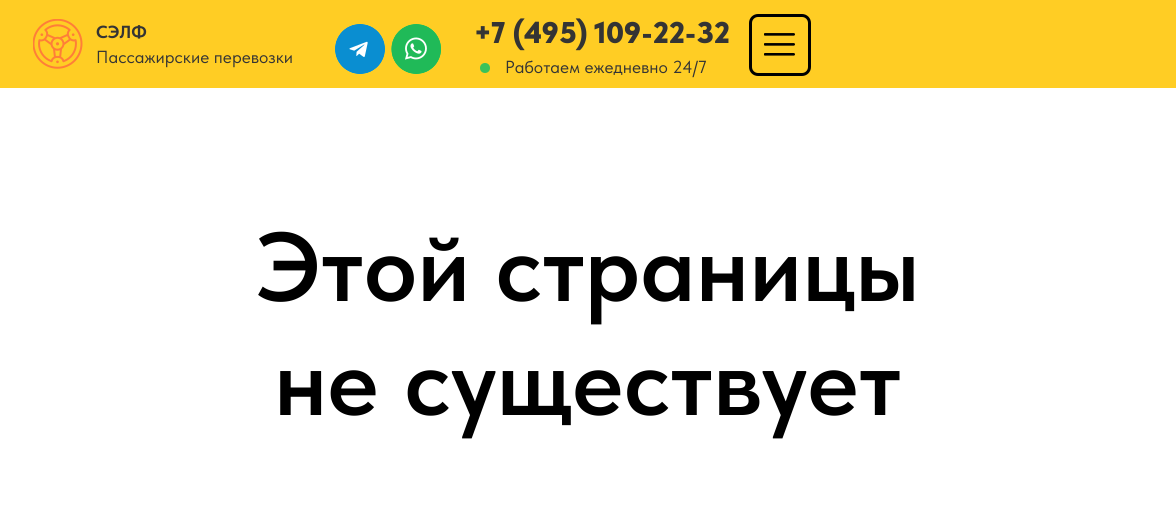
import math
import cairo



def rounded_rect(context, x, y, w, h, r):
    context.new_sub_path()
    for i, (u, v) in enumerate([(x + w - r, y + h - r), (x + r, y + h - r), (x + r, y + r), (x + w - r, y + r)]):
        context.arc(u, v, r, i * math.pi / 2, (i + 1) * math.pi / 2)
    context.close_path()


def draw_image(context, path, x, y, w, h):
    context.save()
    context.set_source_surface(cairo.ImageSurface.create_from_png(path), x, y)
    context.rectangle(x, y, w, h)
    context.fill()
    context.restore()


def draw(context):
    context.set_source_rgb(1, 1, 1)
    context.paint()
    context.set_source_rgb(1, 205 / 255, 36 / 255)
    context.rectangle(0, 0, 1176, 88)
    context.fill()
    draw_image(context, "images/1.png", 33, 19, 50, 50)
    draw_image(context, "images/2.png", 335, 24, 50, 50)
    rounded_rect(context, 750.5, 15.5, 59, 59, 7.5)
    context.set_source_rgb(0, 0, 0)
    context.set_line_width(3)
    context.stroke()
    draw_image(context, "images/3.png", 335, 24, 50, 50)
    draw_image(context, "images/4.png", 391, 24, 50, 50)
    draw_image(context, "images/5.png", 391, 24, 50, 50)
    draw_image(context, "images/6.png", 764, 33, 31, 23)
    context.set_source_rgb(58 / 255, 194 / 255, 90 / 255)
    context.arc(485, 68, 5, 0, 2 * math.pi)
    context.fill()
    context.select_font_face("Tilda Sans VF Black")
    context.set_font_size(30)
    context.set_source_rgb(52 / 255, 52 / 255, 52 / 255)
    context.move_to(474, 43)
    context.show_text("+7 (495) 109-22-32")
    context.select_font_face("Tilda Sans VF", cairo.FontSlant.NORMAL, cairo.FontWeight.BOLD)
    context.set_font_size(17.5)
    context.move_to(96, 38)
    context.show_text("СЭЛФ")
    context.select_font_face("Tilda Sans VF")
    context.move_to(96, 63)
    context.show_text("Пассажирские перевозки")
    context.move_to(505, 73)
    context.show_text("Работаем ежедневно 24/7")
    context.select_font_face("Tilda Sans VF SemiBold")
    context.set_font_size(97.5)
    context.set_source_rgb(0, 0, 0)
    context.move_to(256, 301)
    context.show_text("Этой страницы")
    context.move_to(274, 415)
    context.show_text("не существует")


surface = cairo.ImageSurface(cairo.Format.RGB24, 1176, 529)
context = cairo.Context(surface)
options = cairo.FontOptions()
options.set_hint_metrics(cairo.HintMetrics.OFF)
options.set_hint_style(cairo.HintStyle.NONE)
context.set_font_options(options)
context.set_miter_limit(4)
draw(context)
surface.write_to_png("out.png")
